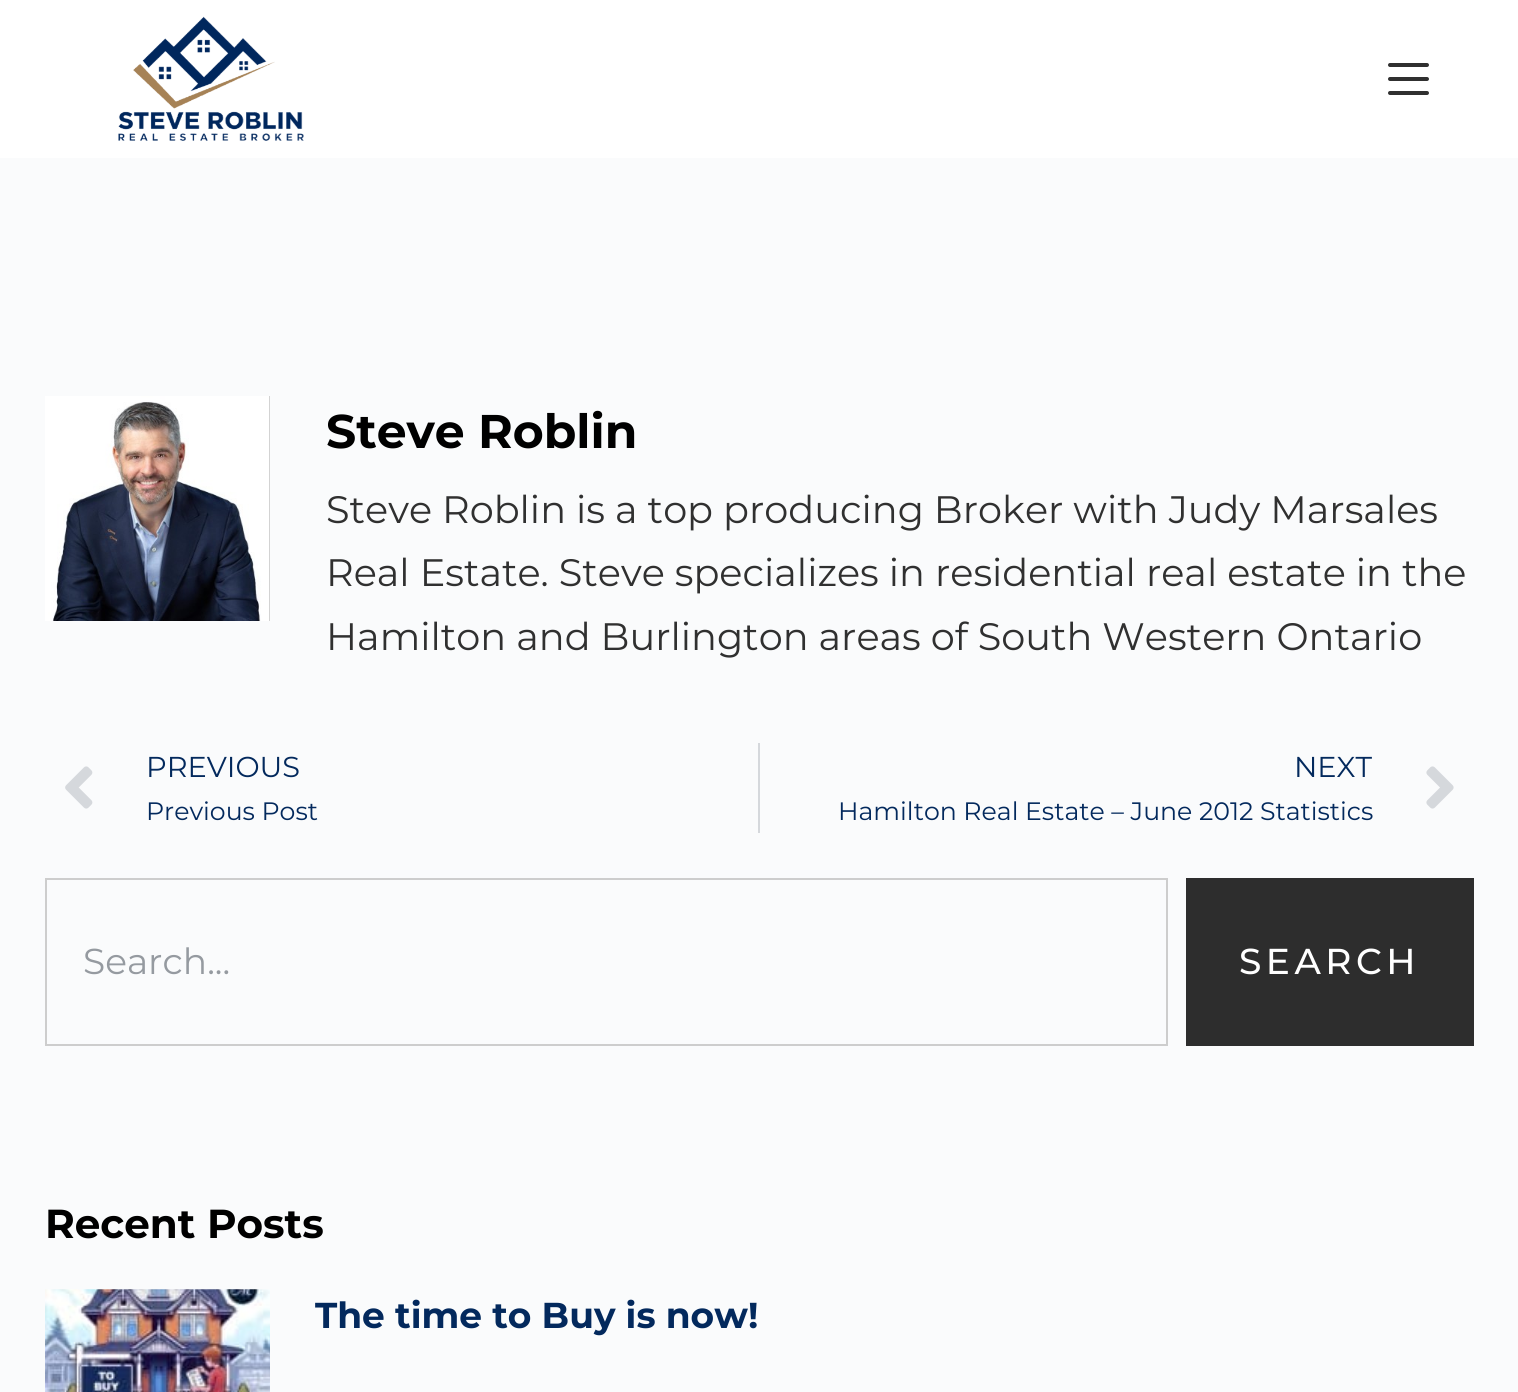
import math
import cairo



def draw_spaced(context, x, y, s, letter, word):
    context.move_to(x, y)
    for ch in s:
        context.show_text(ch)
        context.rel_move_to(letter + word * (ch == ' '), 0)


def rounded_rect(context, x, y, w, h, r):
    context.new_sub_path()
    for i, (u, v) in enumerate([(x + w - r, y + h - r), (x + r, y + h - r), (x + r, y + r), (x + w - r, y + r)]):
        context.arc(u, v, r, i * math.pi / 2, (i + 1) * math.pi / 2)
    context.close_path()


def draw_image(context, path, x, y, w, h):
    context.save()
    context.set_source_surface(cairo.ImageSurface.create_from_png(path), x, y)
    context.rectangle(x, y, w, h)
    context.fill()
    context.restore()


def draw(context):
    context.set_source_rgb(250 / 255, 251 / 255, 252 / 255)
    context.paint()
    context.set_source_rgb(1, 1, 1)
    context.rectangle(0, 0, 1518, 158)
    context.fill()
    draw_image(context, "images/1.png", 118, 16, 186, 125)
    context.set_source_rgb(48 / 255, 48 / 255, 48 / 255)
    rounded_rect(context, 1388, 63, 41, 4, 2)
    context.fill()
    rounded_rect(context, 1388, 77, 41, 4, 2)
    context.fill()
    rounded_rect(context, 1388, 91, 41, 4, 2)
    context.fill()
    draw_image(context, "images/2.png", 45, 396, 225, 225)
    draw_image(context, "images/3.png", 65, 766, 28, 43)
    context.set_source_rgb(213 / 255, 216 / 255, 220 / 255)
    context.rectangle(758, 743, 2, 90)
    context.fill()
    draw_image(context, "images/4.png", 1426, 766, 28, 43)
    context.rectangle(46, 879, 1121, 166)
    context.set_source_rgb(205 / 255, 205 / 255, 205 / 255)
    context.stroke()
    context.set_source_rgb(45 / 255, 45 / 255, 45 / 255)
    context.rectangle(1186, 878, 288, 168)
    context.fill()
    draw_image(context, "images/5.png", 45, 1289, 225, 103)
    context.select_font_face("Montserrat", cairo.FontSlant.NORMAL, cairo.FontWeight.BOLD)
    context.set_font_size(47.25)
    context.set_source_rgb(0, 0, 0)
    context.move_to(326, 448)
    context.show_text("Steve Roblin")
    context.select_font_face("Montserrat")
    context.set_font_size(38.25)
    context.set_source_rgb(48 / 255, 48 / 255, 48 / 255)
    context.move_to(326, 523)
    context.show_text("Steve Roblin is a top producing Broker with Judy Marsales")
    context.move_to(326, 586)
    context.show_text("Real Estate. Steve specializes in residential real estate in the")
    context.move_to(326, 650)
    context.show_text("Hamilton and Burlington areas of South Western Ontario")
    context.set_font_size(28.75)
    context.set_source_rgb(3 / 255, 41 / 255, 93 / 255)
    context.move_to(146, 777)
    context.show_text("PREVIOUS")
    context.set_font_size(25.2)
    context.move_to(146, 820)
    context.show_text("Previous Post")
    context.set_font_size(28.75)
    context.move_to(1294, 777)
    context.show_text("NEXT")
    context.set_font_size(25.2)
    context.move_to(838, 820)
    context.show_text("Hamilton Real Estate – June 2012 Statistics")
    context.set_font_size(36)
    context.set_source_rgb(149 / 255, 154 / 255, 160 / 255)
    context.move_to(83, 974)
    context.show_text("Search...")
    context.select_font_face("Montserrat Medium")
    context.set_source_rgb(1, 1, 1)
    draw_spaced(context, 1239, 974, "SEARCH", 4.5, 0)
    context.select_font_face("Montserrat", cairo.FontSlant.NORMAL, cairo.FontWeight.BOLD)
    context.set_font_size(40.5)
    context.set_source_rgb(0, 0, 0)
    context.move_to(45, 1238)
    context.show_text("Recent Posts")
    context.set_font_size(36)
    context.set_source_rgb(3 / 255, 41 / 255, 93 / 255)
    context.move_to(315, 1328)
    context.show_text("The time to Buy is now!")


surface = cairo.ImageSurface(cairo.Format.RGB24, 1518, 1392)
context = cairo.Context(surface)
options = cairo.FontOptions()
options.set_hint_metrics(cairo.HintMetrics.OFF)
options.set_hint_style(cairo.HintStyle.NONE)
context.set_font_options(options)
context.set_miter_limit(4)
draw(context)
surface.write_to_png("out.png")
